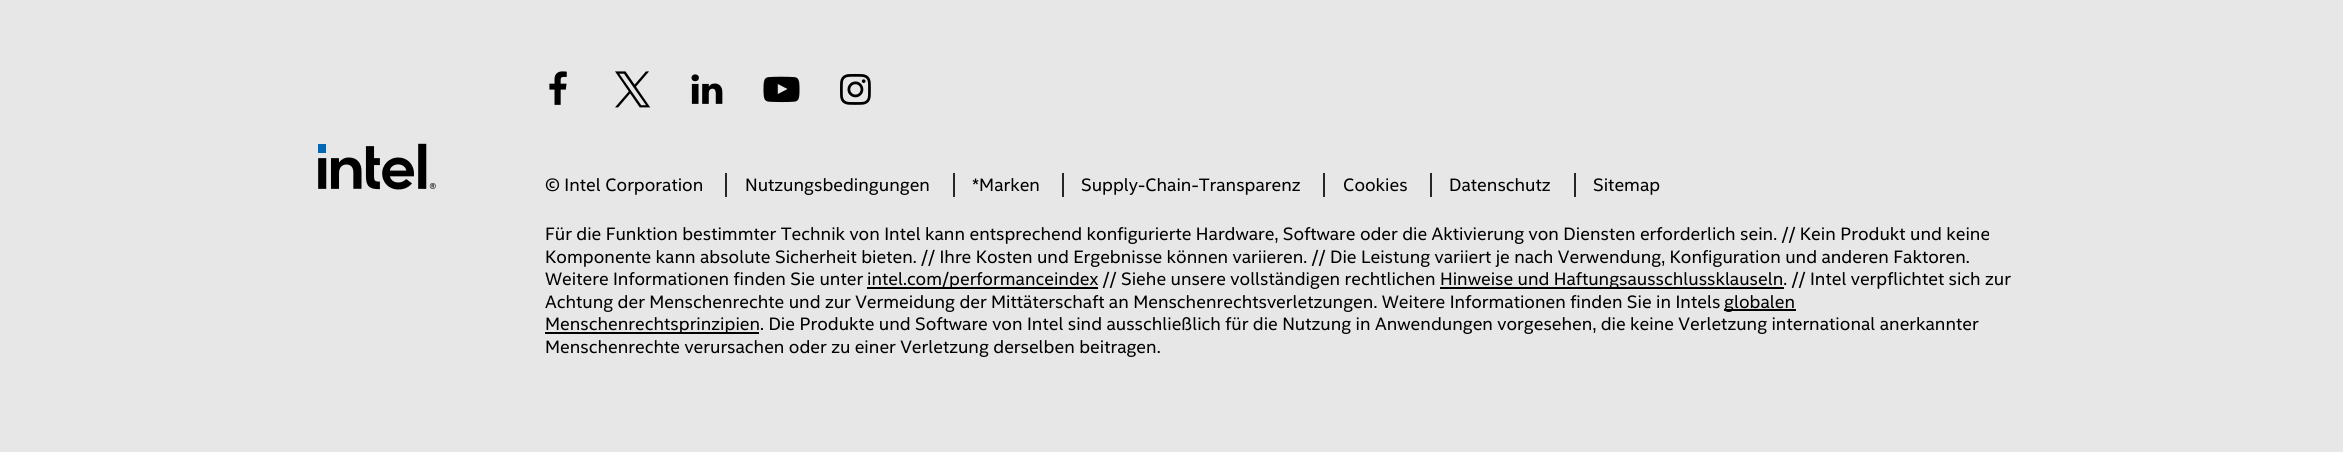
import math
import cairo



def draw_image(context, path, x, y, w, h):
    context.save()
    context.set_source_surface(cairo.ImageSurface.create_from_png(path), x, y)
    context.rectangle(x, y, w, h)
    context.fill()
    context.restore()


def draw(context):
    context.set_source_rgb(231 / 255, 231 / 255, 231 / 255)
    context.paint()
    draw_image(context, "images/1.png", 318, 143, 118, 47)
    draw_image(context, "images/2.png", 549, 71, 18, 34)
    draw_image(context, "images/3.png", 615, 71, 36, 37)
    draw_image(context, "images/4.png", 691, 74, 32, 30)
    draw_image(context, "images/5.png", 763, 76, 37, 27)
    draw_image(context, "images/6.png", 840, 73, 31, 32)
    context.set_source_rgb(38 / 255, 38 / 255, 38 / 255)
    context.rectangle(725, 173, 2, 24)
    context.fill()
    context.rectangle(953, 173, 2, 24)
    context.fill()
    context.rectangle(1062, 173, 2, 24)
    context.fill()
    context.rectangle(1323, 173, 2, 24)
    context.fill()
    context.rectangle(1430, 173, 2, 24)
    context.fill()
    context.rectangle(1574, 173, 2, 24)
    context.fill()
    context.set_source_rgb(0, 0, 0)
    context.rectangle(867, 287, 231, 2)
    context.fill()
    context.rectangle(1440, 287, 344, 2)
    context.fill()
    context.rectangle(1724, 309, 72, 2)
    context.fill()
    context.rectangle(545, 332, 214, 2)
    context.fill()
    context.select_font_face("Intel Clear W")
    context.set_font_size(18)
    context.move_to(545, 191)
    context.show_text("© Intel Corporation")
    context.move_to(745, 191)
    context.show_text("Nutzungsbedingungen")
    context.move_to(972, 191)
    context.show_text("*Marken")
    context.move_to(1081, 191)
    context.show_text("Supply-Chain-Transparenz")
    context.move_to(1343, 191)
    context.show_text("Cookies")
    context.move_to(1449, 191)
    context.show_text("Datenschutz")
    context.move_to(1593, 191)
    context.show_text("Sitemap")
    context.move_to(545, 240)
    context.show_text("Für die Funktion bestimmter Technik von Intel kann entsprechend konfigurierte Hardware, Software oder die Aktivierung von Diensten erforderlich sein. // Kein Produkt und keine")
    context.move_to(545, 263)
    context.show_text("Komponente kann absolute Sicherheit bieten. // Ihre Kosten und Ergebnisse können variieren. // Die Leistung variiert je nach Verwendung, Konfiguration und anderen Faktoren.")
    context.move_to(545, 285)
    context.show_text("Weitere Informationen finden Sie unter")
    context.move_to(867, 285)
    context.show_text("intel.com/performanceindex // Siehe unsere vollständigen rechtlichen")
    context.move_to(1440, 285)
    context.show_text("Hinweise und Haftungsausschlussklauseln. // Intel verpflichtet sich zur")
    context.move_to(545, 308)
    context.show_text("Achtung der Menschenrechte und zur Vermeidung der Mittäterschaft an Menschenrechtsverletzungen. Weitere Informationen finden Sie in Intels")
    context.move_to(1724, 308)
    context.show_text("globalen")
    context.move_to(545, 330)
    context.show_text("Menschenrechtsprinzipien. Die Produkte und Software von Intel sind ausschließlich für die Nutzung in Anwendungen vorgesehen, die keine Verletzung international anerkannter")
    context.move_to(545, 353)
    context.show_text("Menschenrechte verursachen oder zu einer Verletzung derselben beitragen.")


surface = cairo.ImageSurface(cairo.Format.RGB24, 2343, 452)
context = cairo.Context(surface)
options = cairo.FontOptions()
options.set_hint_metrics(cairo.HintMetrics.OFF)
options.set_hint_style(cairo.HintStyle.NONE)
context.set_font_options(options)
context.set_miter_limit(4)
draw(context)
surface.write_to_png("out.png")
